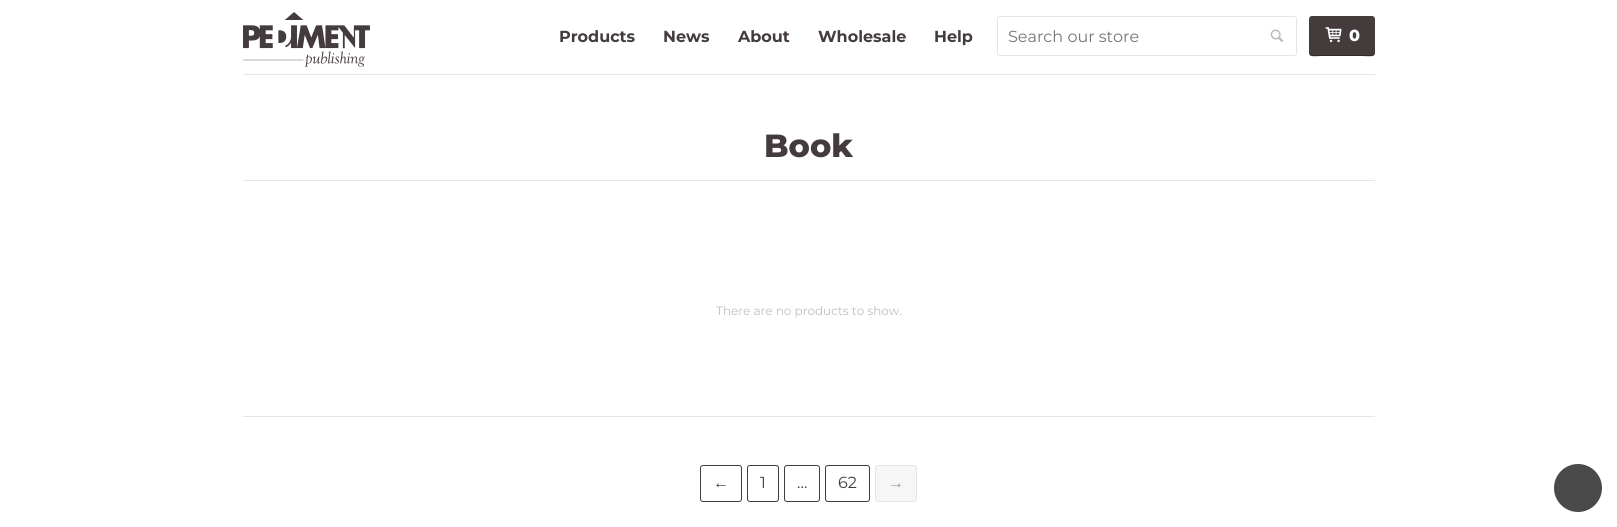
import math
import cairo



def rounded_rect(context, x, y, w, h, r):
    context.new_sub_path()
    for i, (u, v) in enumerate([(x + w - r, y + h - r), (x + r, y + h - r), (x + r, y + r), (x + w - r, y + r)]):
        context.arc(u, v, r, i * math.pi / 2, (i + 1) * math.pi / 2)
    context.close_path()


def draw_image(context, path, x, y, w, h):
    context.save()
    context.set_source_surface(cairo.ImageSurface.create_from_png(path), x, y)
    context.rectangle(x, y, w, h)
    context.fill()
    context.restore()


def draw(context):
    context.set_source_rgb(1, 1, 1)
    context.paint()
    draw_image(context, "images/1.png", 243, 12, 127, 55)
    rounded_rect(context, 997.5, 16.5, 299, 39, 2.5)
    context.set_source_rgb(229 / 255, 229 / 255, 229 / 255)
    context.set_line_width(1)
    context.stroke()
    draw_image(context, "images/2.png", 1270, 29, 14, 13)
    context.set_source_rgb(68 / 255, 60 / 255, 60 / 255)
    rounded_rect(context, 1309, 16, 66, 40, 3)
    context.fill()
    context.set_source_rgba(0, 0, 0, 0.3)
    context.new_path()
    context.move_to(1309, 52)
    context.curve_to(1309, 59, 1318, 56, 1322, 56)
    context.line_to(1362, 56)
    context.curve_to(1366, 56, 1375, 59, 1375, 52)
    context.curve_to(1375, 54, 1374, 55, 1372, 55)
    context.line_to(1312, 55)
    context.curve_to(1310, 55, 1309, 54, 1309, 52)
    context.close_path()
    context.fill()
    draw_image(context, "images/3.png", 1325, 27, 17, 16)
    context.set_source_rgb(229 / 255, 229 / 255, 229 / 255)
    context.rectangle(243, 74, 1132, 1)
    context.fill()
    context.rectangle(243, 180, 1132, 1)
    context.fill()
    context.rectangle(243, 416, 1132, 1)
    context.fill()
    rounded_rect(context, 700.5, 465.5, 41, 36, 2.5)
    context.set_source_rgb(68 / 255, 60 / 255, 60 / 255)
    context.stroke()
    rounded_rect(context, 747.5, 465.5, 31, 36, 2.5)
    context.stroke()
    rounded_rect(context, 784.5, 465.5, 35, 36, 2.5)
    context.stroke()
    rounded_rect(context, 825.5, 465.5, 44, 36, 2.5)
    context.stroke()
    context.set_source_rgb(246 / 255, 246 / 255, 246 / 255)
    rounded_rect(context, 875.5, 465.5, 41, 36, 2.5)
    context.fill_preserve()
    context.set_source_rgb(229 / 255, 229 / 255, 229 / 255)
    context.stroke()
    context.set_source_rgb(74 / 255, 74 / 255, 74 / 255)
    context.arc(1578, 488, 24, 0, 2 * math.pi)
    context.fill()
    context.select_font_face("Montserrat", cairo.FontSlant.NORMAL, cairo.FontWeight.BOLD)
    context.set_font_size(16)
    context.set_source_rgb(68 / 255, 60 / 255, 60 / 255)
    context.move_to(559, 42)
    context.show_text("Products")
    context.move_to(663, 42)
    context.show_text("News")
    context.move_to(738, 42)
    context.show_text("About")
    context.move_to(818, 42)
    context.show_text("Wholesale")
    context.move_to(934, 42)
    context.show_text("Help")
    context.select_font_face("Montserrat")
    context.set_source_rgb(117 / 255, 117 / 255, 117 / 255)
    context.move_to(1008, 42)
    context.show_text("Search our store")
    context.select_font_face("Montserrat ExtraBold")
    context.set_source_rgb(1, 1, 1)
    context.move_to(1349, 41)
    context.show_text("0")
    context.set_font_size(32)
    context.set_source_rgb(68 / 255, 60 / 255, 60 / 255)
    context.move_to(764, 157)
    context.show_text("Book")
    context.select_font_face("Montserrat")
    context.set_font_size(12)
    context.set_source_rgb(195 / 255, 188 / 255, 188 / 255)
    context.move_to(716, 315)
    context.show_text("There are no products to show.")
    context.select_font_face("Liberation Sans")
    context.set_font_size(16)
    context.set_source_rgb(68 / 255, 60 / 255, 60 / 255)
    context.move_to(713, 488)
    context.show_text("←")
    context.select_font_face("Montserrat")
    context.move_to(760, 488)
    context.show_text("1")
    context.move_to(797, 488)
    context.show_text("…")
    context.move_to(838, 488)
    context.show_text("62")
    context.select_font_face("Liberation Sans")
    context.set_source_rgb(153 / 255, 153 / 255, 153 / 255)
    context.move_to(888, 488)
    context.show_text("→")


surface = cairo.ImageSurface(cairo.Format.RGB24, 1617, 527)
context = cairo.Context(surface)
options = cairo.FontOptions()
options.set_hint_metrics(cairo.HintMetrics.OFF)
options.set_hint_style(cairo.HintStyle.NONE)
context.set_font_options(options)
context.set_miter_limit(4)
draw(context)
surface.write_to_png("out.png")
